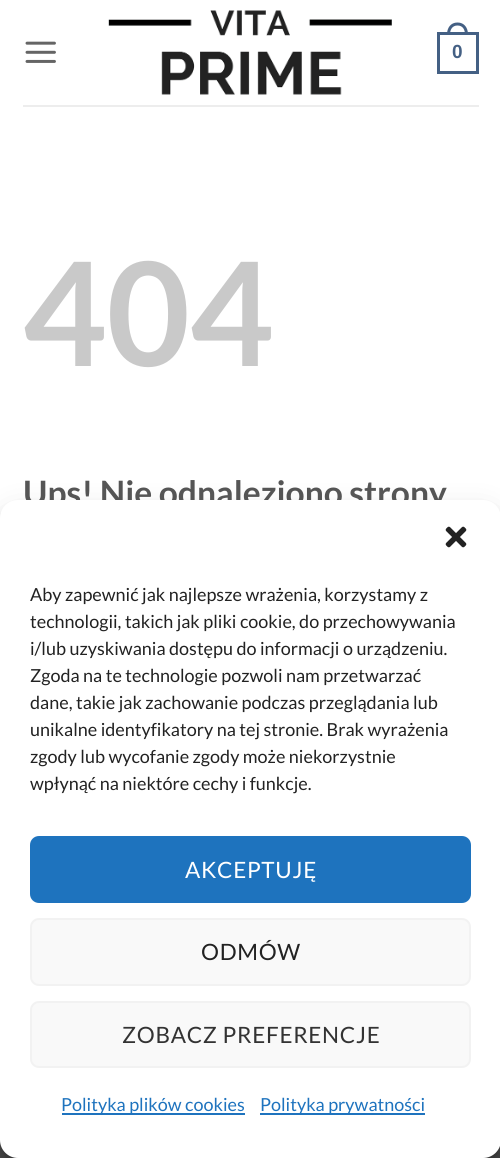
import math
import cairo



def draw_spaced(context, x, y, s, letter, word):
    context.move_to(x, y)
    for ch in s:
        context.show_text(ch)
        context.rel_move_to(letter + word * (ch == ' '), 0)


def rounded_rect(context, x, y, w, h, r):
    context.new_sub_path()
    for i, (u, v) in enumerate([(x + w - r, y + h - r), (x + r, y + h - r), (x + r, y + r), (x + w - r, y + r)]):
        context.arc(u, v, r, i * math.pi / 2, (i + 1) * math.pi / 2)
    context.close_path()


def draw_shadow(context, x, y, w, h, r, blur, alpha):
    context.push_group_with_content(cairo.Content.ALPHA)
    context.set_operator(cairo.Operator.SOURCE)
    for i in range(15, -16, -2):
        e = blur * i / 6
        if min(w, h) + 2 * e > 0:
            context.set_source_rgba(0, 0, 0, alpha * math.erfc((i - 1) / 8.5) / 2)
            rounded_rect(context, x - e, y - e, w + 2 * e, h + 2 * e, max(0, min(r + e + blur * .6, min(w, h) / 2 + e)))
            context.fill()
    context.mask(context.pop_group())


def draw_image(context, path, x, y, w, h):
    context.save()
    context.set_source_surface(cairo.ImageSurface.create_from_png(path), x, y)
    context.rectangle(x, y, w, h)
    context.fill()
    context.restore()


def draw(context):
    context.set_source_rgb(77 / 255, 77 / 255, 77 / 255)
    context.paint()
    context.set_source_rgb(1, 1, 1)
    context.rectangle(0, 0, 500, 518)
    context.fill()
    draw_image(context, "images/1.png", 25, 41, 31, 22)
    draw_image(context, "images/2.png", 108, 10, 284, 85)
    context.rectangle(438.5, 33.5, 39, 39)
    context.set_source_rgb(68 / 255, 96 / 255, 132 / 255)
    context.set_line_width(3)
    context.stroke()
    context.set_fill_rule(cairo.FillRule.EVEN_ODD)
    context.new_path()
    context.move_to(457.5, 22.5)
    context.curve_to(464.5, 22.5, 468, 28, 468, 34.5)
    context.line_to(447, 34.5)
    context.curve_to(447, 28, 450.5, 22.5, 457.5, 22.5)
    context.close_path()
    context.move_to(457.5, 25.5)
    context.curve_to(463, 25.5, 465, 30, 465, 34.5)
    context.line_to(450, 34.5)
    context.curve_to(450, 30, 452, 25.5, 457.5, 25.5)
    context.close_path()
    context.fill()
    context.set_source_rgb(237 / 255, 237 / 255, 237 / 255)
    context.rectangle(23, 105, 456, 2)
    context.fill()
    context.set_source_rgb(0, 0, 0)
    draw_shadow(context, 0, 509, 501, 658, 18, 4.5, 0.23)
    draw_shadow(context, 0, 515, 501, 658, 18, 15, 0.19)
    context.select_font_face("Liberation Sans", cairo.FontSlant.NORMAL, cairo.FontWeight.BOLD)
    context.set_font_size(19)
    context.set_source_rgb(68 / 255, 96 / 255, 132 / 255)
    context.move_to(452, 58)
    context.show_text("0")
    context.select_font_face("Lato", cairo.FontSlant.NORMAL, cairo.FontWeight.BOLD)
    context.set_font_size(144)
    context.set_source_rgb(201 / 255, 201 / 255, 201 / 255)
    context.move_to(23, 366)
    context.show_text("404")
    context.set_font_size(33.6)
    context.set_source_rgb(85 / 255, 85 / 255, 85 / 255)
    context.move_to(23, 505)
    context.show_text("Ups! Nie odnaleziono strony")
    context.set_source_rgb(1, 1, 1)
    rounded_rect(context, 0, 500, 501, 658, 18)
    context.fill()
    draw_image(context, "images/3.png", 445, 526, 22, 22)
    context.select_font_face("Lato")
    context.set_font_size(18)
    context.set_source_rgb(34 / 255, 34 / 255, 34 / 255)
    context.move_to(30, 601)
    context.show_text("Aby zapewnić jak najlepsze wrażenia, korzystamy z")
    context.move_to(30, 628)
    context.show_text("technologii, takich jak pliki cookie, do przechowywania")
    context.move_to(30, 655)
    context.show_text("i/lub uzyskiwania dostępu do informacji o urządzeniu.")
    context.move_to(30, 682)
    context.show_text("Zgoda na te technologie pozwoli nam przetwarzać")
    context.move_to(30, 709)
    context.show_text("dane, takie jak zachowanie podczas przeglądania lub")
    context.move_to(30, 736)
    context.show_text("unikalne identyfikatory na tej stronie. Brak wyrażenia")
    context.move_to(30, 763)
    context.show_text("zgody lub wycofanie zgody może niekorzystnie")
    context.move_to(30, 790)
    context.show_text("wpłynąć na niektóre cechy i funkcje.")
    context.set_source_rgb(30 / 255, 115 / 255, 190 / 255)
    rounded_rect(context, 31, 837, 439, 65, 8)
    context.fill_preserve()
    context.set_line_width(2)
    context.stroke()
    context.set_font_size(22.5)
    context.set_source_rgb(1, 1, 1)
    draw_spaced(context, 185, 878, "AKCEPTUJĘ", 0.7, 0)
    context.set_source_rgb(249 / 255, 249 / 255, 249 / 255)
    rounded_rect(context, 31, 919, 439, 66, 8)
    context.fill_preserve()
    context.set_source_rgb(242 / 255, 242 / 255, 242 / 255)
    context.stroke()
    context.set_source_rgb(34 / 255, 34 / 255, 34 / 255)
    draw_spaced(context, 201, 960, "ODMÓW", 0.7, 0)
    context.set_source_rgb(249 / 255, 249 / 255, 249 / 255)
    rounded_rect(context, 31, 1002, 439, 65, 8)
    context.fill_preserve()
    context.set_source_rgb(242 / 255, 242 / 255, 242 / 255)
    context.stroke()
    context.set_source_rgb(51 / 255, 51 / 255, 51 / 255)
    draw_spaced(context, 122, 1043, "ZOBACZ PREFERENCJE", 0.7, 0)
    context.set_source_rgb(30 / 255, 115 / 255, 190 / 255)
    context.rectangle(62, 1113, 183, 2)
    context.fill()
    context.set_font_size(18)
    context.move_to(61, 1111)
    context.show_text("Polityka plików cookies")
    context.rectangle(260, 1113, 165, 2)
    context.fill()
    context.move_to(260, 1111)
    context.show_text("Polityka prywatności")


surface = cairo.ImageSurface(cairo.Format.RGB24, 500, 1158)
context = cairo.Context(surface)
options = cairo.FontOptions()
options.set_hint_metrics(cairo.HintMetrics.OFF)
options.set_hint_style(cairo.HintStyle.NONE)
context.set_font_options(options)
context.set_miter_limit(4)
draw(context)
surface.write_to_png("out.png")
